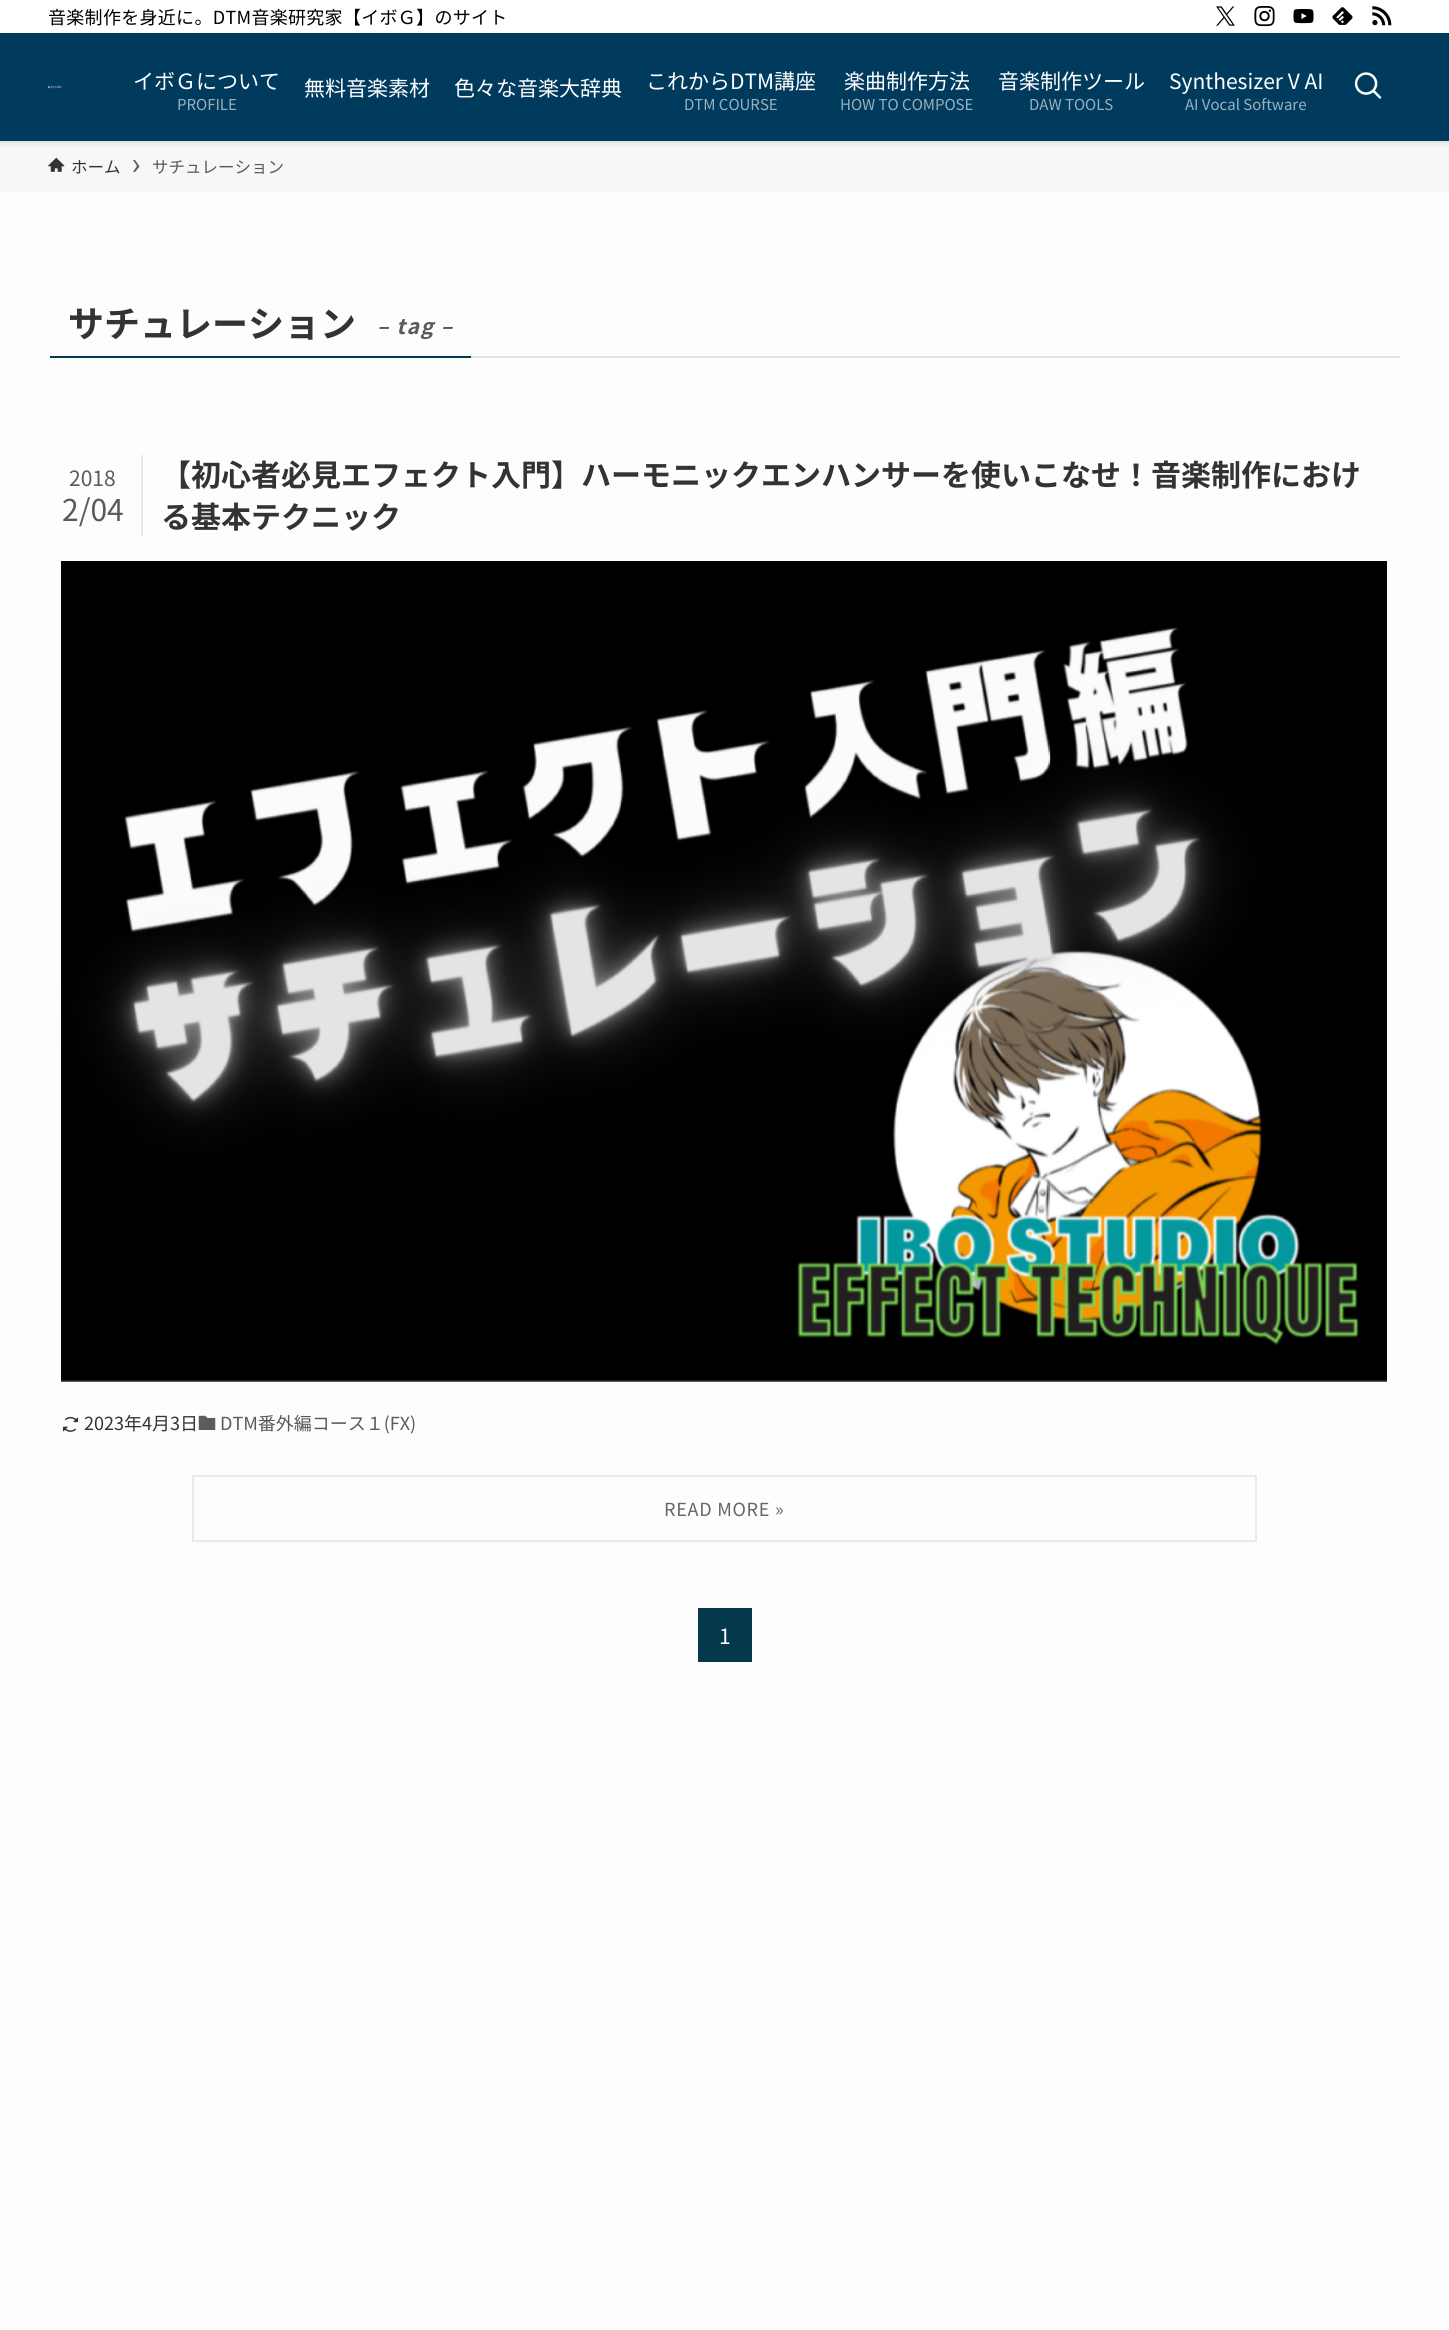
import math
import cairo



def draw_spaced(context, x, y, s, letter, word):
    context.move_to(x, y)
    for ch in s:
        context.show_text(ch)
        context.rel_move_to(letter + word * (ch == ' '), 0)


def rounded_rect(context, x, y, w, h, r):
    context.new_sub_path()
    for i, (u, v) in enumerate([(x + w - r, y + h - r), (x + r, y + h - r), (x + r, y + r), (x + w - r, y + r)]):
        context.arc(u, v, r, i * math.pi / 2, (i + 1) * math.pi / 2)
    context.close_path()


def draw_shadow(context, x, y, w, h, r, blur, alpha):
    context.push_group_with_content(cairo.Content.ALPHA)
    context.set_operator(cairo.Operator.SOURCE)
    for i in range(15, -16, -2):
        e = blur * i / 6
        if min(w, h) + 2 * e > 0:
            context.set_source_rgba(0, 0, 0, alpha * math.erfc((i - 1) / 8.5) / 2)
            rounded_rect(context, x - e, y - e, w + 2 * e, h + 2 * e, max(0, min(r + e + blur * .6, min(w, h) / 2 + e)))
            context.fill()
    context.mask(context.pop_group())


def draw_image(context, path, x, y, w, h):
    context.save()
    context.set_source_surface(cairo.ImageSurface.create_from_png(path), x, y)
    context.rectangle(x, y, w, h)
    context.fill()
    context.restore()


def draw(context):
    context.set_source_rgb(253 / 255, 253 / 255, 253 / 255)
    context.paint()
    context.set_source_rgb(247 / 255, 247 / 255, 247 / 255)
    context.rectangle(0, 141, 1449, 51)
    context.fill()
    context.set_source_rgb(0, 0, 0)
    draw_shadow(context, 0, 2, 1449, 141, 0, 3, 0.12)
    context.set_source_rgb(0, 59 / 255, 94 / 255)
    context.rectangle(0, 33, 1449, 108)
    context.fill()
    context.set_source_rgb(1, 1, 1)
    context.rectangle(0, 0, 1449, 33)
    context.fill()
    draw_image(context, "images/1.png", 1216, 6, 19, 20)
    draw_image(context, "images/2.png", 1254, 6, 21, 21)
    draw_image(context, "images/3.png", 1293, 9, 21, 15)
    draw_image(context, "images/4.png", 1332, 7, 21, 18)
    draw_image(context, "images/5.png", 1372, 6, 20, 20)
    draw_image(context, "images/6.png", 48, 85, 14, 4)
    draw_image(context, "images/7.png", 1354, 72, 28, 27)
    draw_image(context, "images/8.png", 48, 157, 17, 15)
    context.set_source_rgb(90 / 255, 90 / 255, 90 / 255)
    context.new_path()
    context.move_to(135, 160)
    context.line_to(133, 160)
    context.line_to(137, 166)
    context.line_to(133, 172)
    context.line_to(135, 172)
    context.line_to(139.5, 166.5)
    context.close_path()
    context.fill()
    context.set_source_rgb(226 / 255, 226 / 255, 226 / 255)
    context.rectangle(471, 356, 929, 2)
    context.fill()
    context.set_source_rgb(4 / 255, 56 / 255, 76 / 255)
    context.rectangle(50, 356, 421, 2)
    context.fill()
    context.set_source_rgb(232 / 255, 232 / 255, 232 / 255)
    context.rectangle(141, 455, 2, 81)
    context.fill()
    draw_image(context, "images/9.png", 61, 561, 1326, 821)
    draw_image(context, "images/10.png", 63, 1416, 15, 16)
    draw_image(context, "images/11.png", 198, 1415, 18, 15)
    context.rectangle(193, 1476, 1063, 65)
    context.set_source_rgb(233 / 255, 233 / 255, 233 / 255)
    context.stroke()
    context.set_source_rgb(4 / 255, 56 / 255, 76 / 255)
    context.rectangle(698, 1608, 54, 54)
    context.fill()
    context.select_font_face("Noto Sans JP")
    context.set_font_size(18)
    context.set_source_rgb(0, 0, 0)
    draw_spaced(context, 48, 24, "音楽制作を身近に。DTM音楽研究家【イボＧ】のサイト", 0.3, 0)
    context.set_font_size(21)
    context.set_source_rgb(1, 1, 1)
    context.move_to(133, 89)
    context.show_text("イボＧについて")
    context.set_font_size(15)
    context.set_source_rgb(153 / 255, 177 / 255, 191 / 255)
    context.move_to(177, 110)
    context.show_text("PROFILE")
    context.set_font_size(21)
    context.set_source_rgb(1, 1, 1)
    context.move_to(304, 96)
    context.show_text("無料音楽素材")
    context.move_to(454, 96)
    context.show_text("色々な音楽大辞典")
    context.move_to(646, 89)
    context.show_text("これからDTM講座")
    context.set_font_size(15)
    context.set_source_rgb(153 / 255, 177 / 255, 191 / 255)
    context.move_to(684, 110)
    context.show_text("DTM COURSE")
    context.set_font_size(21)
    context.set_source_rgb(1, 1, 1)
    context.move_to(844, 89)
    context.show_text("楽曲制作方法")
    context.set_font_size(15)
    context.set_source_rgb(153 / 255, 177 / 255, 191 / 255)
    context.move_to(840, 110)
    context.show_text("HOW TO COMPOSE")
    context.set_font_size(21)
    context.set_source_rgb(1, 1, 1)
    context.move_to(998, 89)
    context.show_text("音楽制作ツール")
    context.set_font_size(15)
    context.set_source_rgb(153 / 255, 177 / 255, 191 / 255)
    context.move_to(1029, 110)
    context.show_text("DAW TOOLS")
    context.set_font_size(21)
    context.set_source_rgb(1, 1, 1)
    context.move_to(1169, 89)
    context.show_text("Synthesizer V AI")
    context.set_font_size(15)
    context.set_source_rgb(153 / 255, 177 / 255, 191 / 255)
    context.move_to(1185, 110)
    context.show_text("AI Vocal Software")
    context.set_font_size(16.5)
    context.set_source_rgb(51 / 255, 51 / 255, 51 / 255)
    context.move_to(71, 173)
    context.show_text("ホーム")
    context.set_source_rgb(90 / 255, 90 / 255, 90 / 255)
    context.move_to(152, 173)
    context.show_text("サチュレーション")
    context.select_font_face("Noto Sans JP", cairo.FontSlant.NORMAL, cairo.FontWeight.BOLD)
    context.set_font_size(36)
    context.set_source_rgb(51 / 255, 51 / 255, 51 / 255)
    context.move_to(68, 337)
    context.show_text("サチュレーション")
    context.select_font_face("Noto Sans JP", cairo.FontSlant.ITALIC, cairo.FontWeight.BOLD)
    context.set_font_size(21)
    context.set_source_rgb(90 / 255, 90 / 255, 90 / 255)
    draw_spaced(context, 377, 334, "– tag –", 1.5, 0)
    context.select_font_face("Noto Sans JP")
    context.move_to(69, 486)
    context.show_text("2018")
    context.set_font_size(30)
    context.move_to(62, 521)
    context.show_text("2/04")
    context.select_font_face("Noto Sans JP", cairo.FontSlant.NORMAL, cairo.FontWeight.BOLD)
    context.set_source_rgb(51 / 255, 51 / 255, 51 / 255)
    context.move_to(161, 486)
    context.show_text("【初心者必見エフェクト入門】ハーモニックエンハンサーを使いこなせ！音楽制作におけ")
    context.move_to(161, 528)
    context.show_text("る基本テクニック")
    context.select_font_face("Noto Sans JP")
    context.set_font_size(18)
    context.move_to(84, 1430)
    context.show_text("2023年4月3日")
    context.set_source_rgb(90 / 255, 90 / 255, 90 / 255)
    context.move_to(220, 1430)
    context.show_text("DTM番外編コース１(FX)")
    context.set_source_rgb(102 / 255, 102 / 255, 102 / 255)
    draw_spaced(context, 664, 1516, "READ MORE »", 0.75, 0)
    context.set_font_size(21)
    context.set_source_rgb(1, 1, 1)
    context.move_to(719, 1644)
    context.show_text("1")


surface = cairo.ImageSurface(cairo.Format.RGB24, 1449, 2330)
context = cairo.Context(surface)
options = cairo.FontOptions()
options.set_hint_metrics(cairo.HintMetrics.OFF)
options.set_hint_style(cairo.HintStyle.NONE)
context.set_font_options(options)
context.set_miter_limit(4)
draw(context)
surface.write_to_png("out.png")
